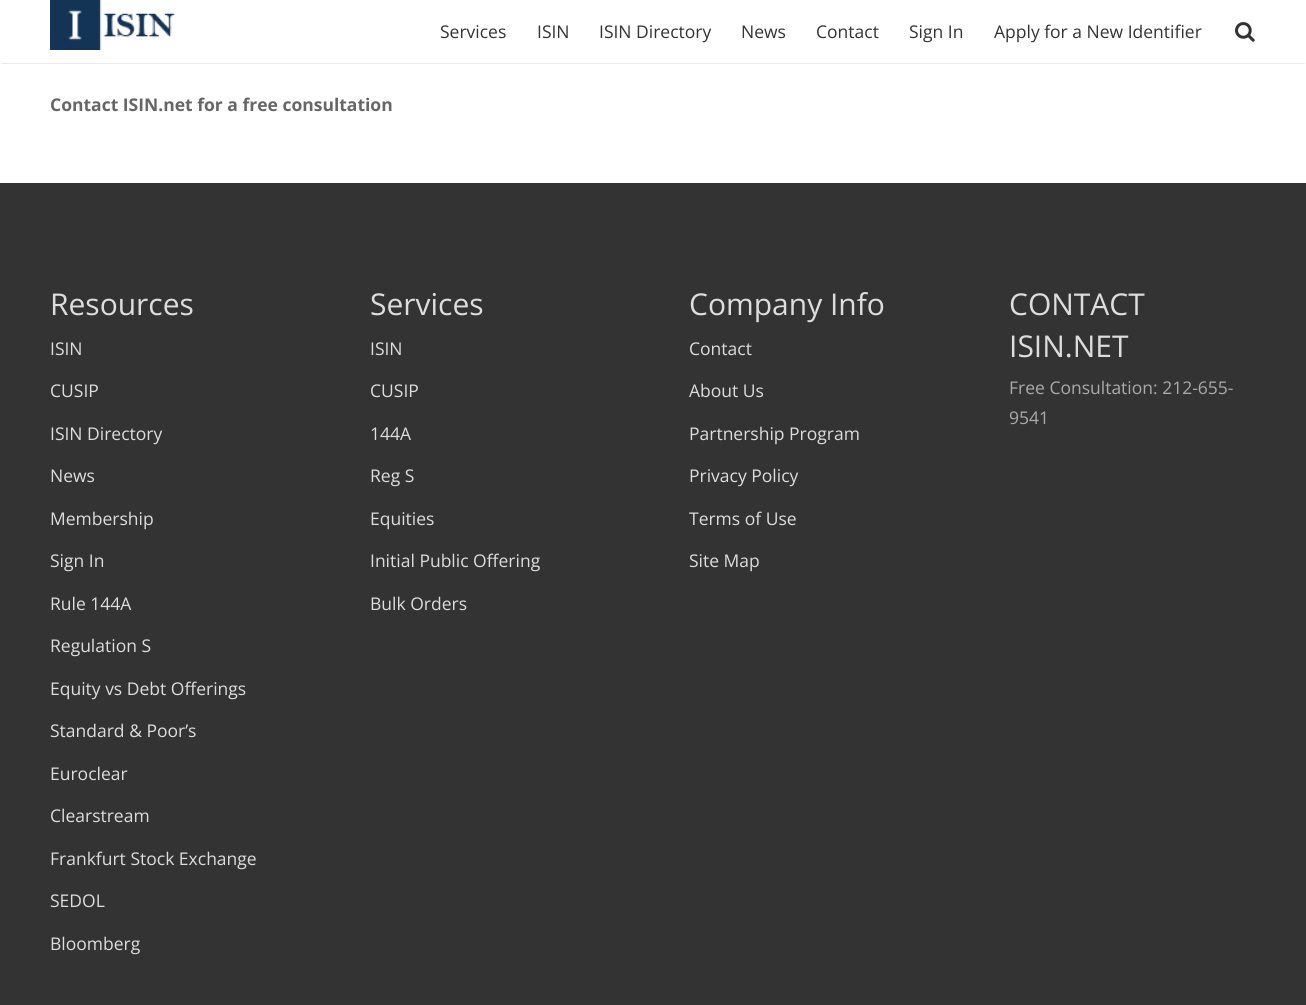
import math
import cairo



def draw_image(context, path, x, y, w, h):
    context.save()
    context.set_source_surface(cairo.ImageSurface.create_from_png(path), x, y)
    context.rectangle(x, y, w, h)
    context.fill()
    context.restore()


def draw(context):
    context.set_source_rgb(1, 1, 1)
    context.paint()
    context.set_source_rgb(235 / 255, 235 / 255, 235 / 255)
    context.rectangle(1, 63, 1304, 1)
    context.fill()
    draw_image(context, "images/1.png", 50, 0, 125, 50)
    draw_image(context, "images/2.png", 1235, 22, 20, 20)
    context.set_source_rgb(51 / 255, 51 / 255, 51 / 255)
    context.rectangle(0, 183, 1306, 822)
    context.fill()
    context.select_font_face("Open Sans")
    context.set_font_size(17.5)
    context.move_to(440, 38)
    context.show_text("Services")
    context.move_to(537, 38)
    context.show_text("ISIN")
    context.move_to(599, 38)
    context.show_text("ISIN Directory")
    context.move_to(741, 38)
    context.show_text("News")
    context.move_to(816, 38)
    context.show_text("Contact")
    context.move_to(909, 38)
    context.show_text("Sign In")
    context.move_to(994, 38)
    context.show_text("Apply for a New Identifier")
    context.select_font_face("Open Sans", cairo.FontSlant.NORMAL, cairo.FontWeight.BOLD)
    context.set_source_rgb(102 / 255, 102 / 255, 102 / 255)
    context.move_to(50, 111)
    context.show_text("Contact ISIN.net for a free consultation")
    context.select_font_face("Open Sans")
    context.set_font_size(30)
    context.set_source_rgb(221 / 255, 221 / 255, 221 / 255)
    context.move_to(50, 315)
    context.show_text("Resources")
    context.set_font_size(17.5)
    context.move_to(50, 355)
    context.show_text("ISIN")
    context.move_to(50, 397)
    context.show_text("CUSIP")
    context.move_to(50, 440)
    context.show_text("ISIN Directory")
    context.move_to(50, 482)
    context.show_text("News")
    context.move_to(50, 525)
    context.show_text("Membership")
    context.move_to(50, 567)
    context.show_text("Sign In")
    context.move_to(50, 610)
    context.show_text("Rule 144A")
    context.move_to(50, 652)
    context.show_text("Regulation S")
    context.move_to(50, 695)
    context.show_text("Equity vs Debt Offerings")
    context.move_to(50, 737)
    context.show_text("Standard & Poor’s")
    context.move_to(50, 780)
    context.show_text("Euroclear")
    context.move_to(50, 822)
    context.show_text("Clearstream")
    context.move_to(50, 865)
    context.show_text("Frankfurt Stock Exchange")
    context.move_to(50, 907)
    context.show_text("SEDOL")
    context.move_to(50, 950)
    context.show_text("Bloomberg")
    context.set_font_size(30)
    context.move_to(370, 315)
    context.show_text("Services")
    context.set_font_size(17.5)
    context.move_to(370, 355)
    context.show_text("ISIN")
    context.move_to(370, 397)
    context.show_text("CUSIP")
    context.move_to(370, 440)
    context.show_text("144A")
    context.move_to(370, 482)
    context.show_text("Reg S")
    context.move_to(370, 525)
    context.show_text("Equities")
    context.move_to(370, 567)
    context.show_text("Initial Public Offering")
    context.move_to(370, 610)
    context.show_text("Bulk Orders")
    context.set_font_size(30)
    context.move_to(689, 315)
    context.show_text("Company Info")
    context.set_font_size(17.5)
    context.move_to(689, 355)
    context.show_text("Contact")
    context.move_to(689, 397)
    context.show_text("About Us")
    context.move_to(689, 440)
    context.show_text("Partnership Program")
    context.move_to(689, 482)
    context.show_text("Privacy Policy")
    context.move_to(689, 525)
    context.show_text("Terms of Use")
    context.move_to(689, 567)
    context.show_text("Site Map")
    context.set_font_size(30)
    context.move_to(1009, 315)
    context.show_text("CONTACT")
    context.move_to(1009, 357)
    context.show_text("ISIN.NET")
    context.set_font_size(17.5)
    context.set_source_rgb(170 / 255, 170 / 255, 170 / 255)
    context.move_to(1009, 394)
    context.show_text("Free Consultation: 212-655-")
    context.move_to(1009, 424)
    context.show_text("9541")


surface = cairo.ImageSurface(cairo.Format.RGB24, 1306, 1005)
context = cairo.Context(surface)
options = cairo.FontOptions()
options.set_hint_metrics(cairo.HintMetrics.OFF)
options.set_hint_style(cairo.HintStyle.NONE)
context.set_font_options(options)
context.set_miter_limit(4)
draw(context)
surface.write_to_png("out.png")
